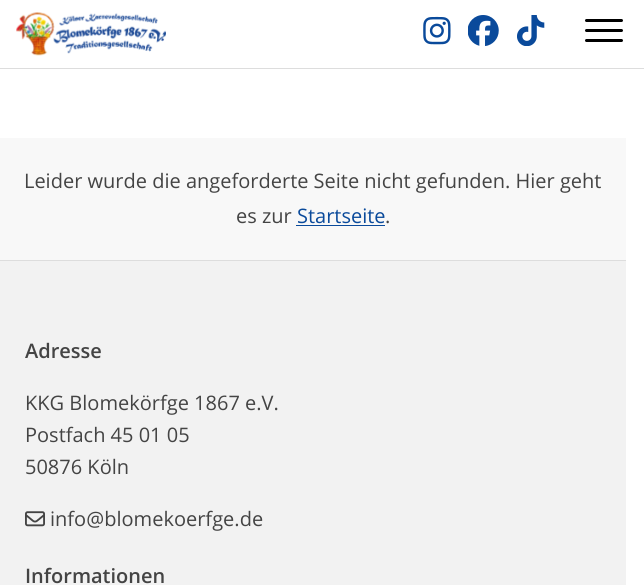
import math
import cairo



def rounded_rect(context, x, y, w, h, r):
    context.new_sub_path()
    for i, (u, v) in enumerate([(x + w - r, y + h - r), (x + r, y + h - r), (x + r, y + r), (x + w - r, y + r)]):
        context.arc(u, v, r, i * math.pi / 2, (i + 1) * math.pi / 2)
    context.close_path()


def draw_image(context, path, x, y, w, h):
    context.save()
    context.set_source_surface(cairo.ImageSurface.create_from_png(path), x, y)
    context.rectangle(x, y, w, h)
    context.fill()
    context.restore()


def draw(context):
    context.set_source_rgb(1, 1, 1)
    context.paint()
    draw_image(context, "images/1.png", 423, 16, 28, 29)
    draw_image(context, "images/2.png", 468, 15, 31, 31)
    draw_image(context, "images/3.png", 517, 15, 28, 31)
    context.set_source_rgb(221 / 255, 221 / 255, 221 / 255)
    context.rectangle(0, 68, 644, 1)
    context.fill()
    draw_image(context, "images/4.png", 16, 12, 150, 44)
    context.set_source_rgb(0, 0, 0)
    rounded_rect(context, 585, 19, 38, 3, 1.5)
    context.fill()
    rounded_rect(context, 585, 29, 38, 3, 1.5)
    context.fill()
    rounded_rect(context, 585, 39, 38, 3, 1.5)
    context.fill()
    context.set_source_rgb(248 / 255, 248 / 255, 248 / 255)
    context.rectangle(0, 138, 626, 122)
    context.fill()
    context.set_source_rgb(221 / 255, 221 / 255, 221 / 255)
    context.rectangle(0, 260, 626, 1)
    context.fill()
    context.set_source_rgb(10 / 255, 74 / 255, 155 / 255)
    context.rectangle(296, 225, 89, 1)
    context.fill()
    context.set_source_rgb(242 / 255, 242 / 255, 242 / 255)
    context.rectangle(0, 261, 626, 324)
    context.fill()
    draw_image(context, "images/5.png", 25, 511, 20, 16)
    context.select_font_face("Open Sans")
    context.set_font_size(20)
    context.set_source_rgb(68 / 255, 68 / 255, 68 / 255)
    context.move_to(24, 188)
    context.show_text("Leider wurde die angeforderte Seite nicht gefunden. Hier geht")
    context.move_to(236, 223)
    context.show_text("es zur")
    context.set_source_rgb(10 / 255, 74 / 255, 155 / 255)
    context.move_to(297, 223)
    context.show_text("Startseite")
    context.set_source_rgb(68 / 255, 68 / 255, 68 / 255)
    context.move_to(385, 223)
    context.show_text(".")
    context.select_font_face("Open Sans SemiBold")
    context.move_to(25, 358)
    context.show_text("Adresse")
    context.select_font_face("Open Sans")
    context.move_to(25, 410)
    context.show_text("KKG Blomekörfge 1867 e.V.")
    context.move_to(25, 442)
    context.show_text("Postfach 45 01 05")
    context.move_to(25, 474)
    context.show_text("50876 Köln")
    context.move_to(50, 526)
    context.show_text("info@blomekoerfge.de")
    context.select_font_face("Open Sans SemiBold")
    context.move_to(25, 583)
    context.show_text("Informationen")


surface = cairo.ImageSurface(cairo.Format.RGB24, 644, 585)
context = cairo.Context(surface)
options = cairo.FontOptions()
options.set_hint_metrics(cairo.HintMetrics.OFF)
options.set_hint_style(cairo.HintStyle.NONE)
context.set_font_options(options)
context.set_miter_limit(4)
draw(context)
surface.write_to_png("out.png")
